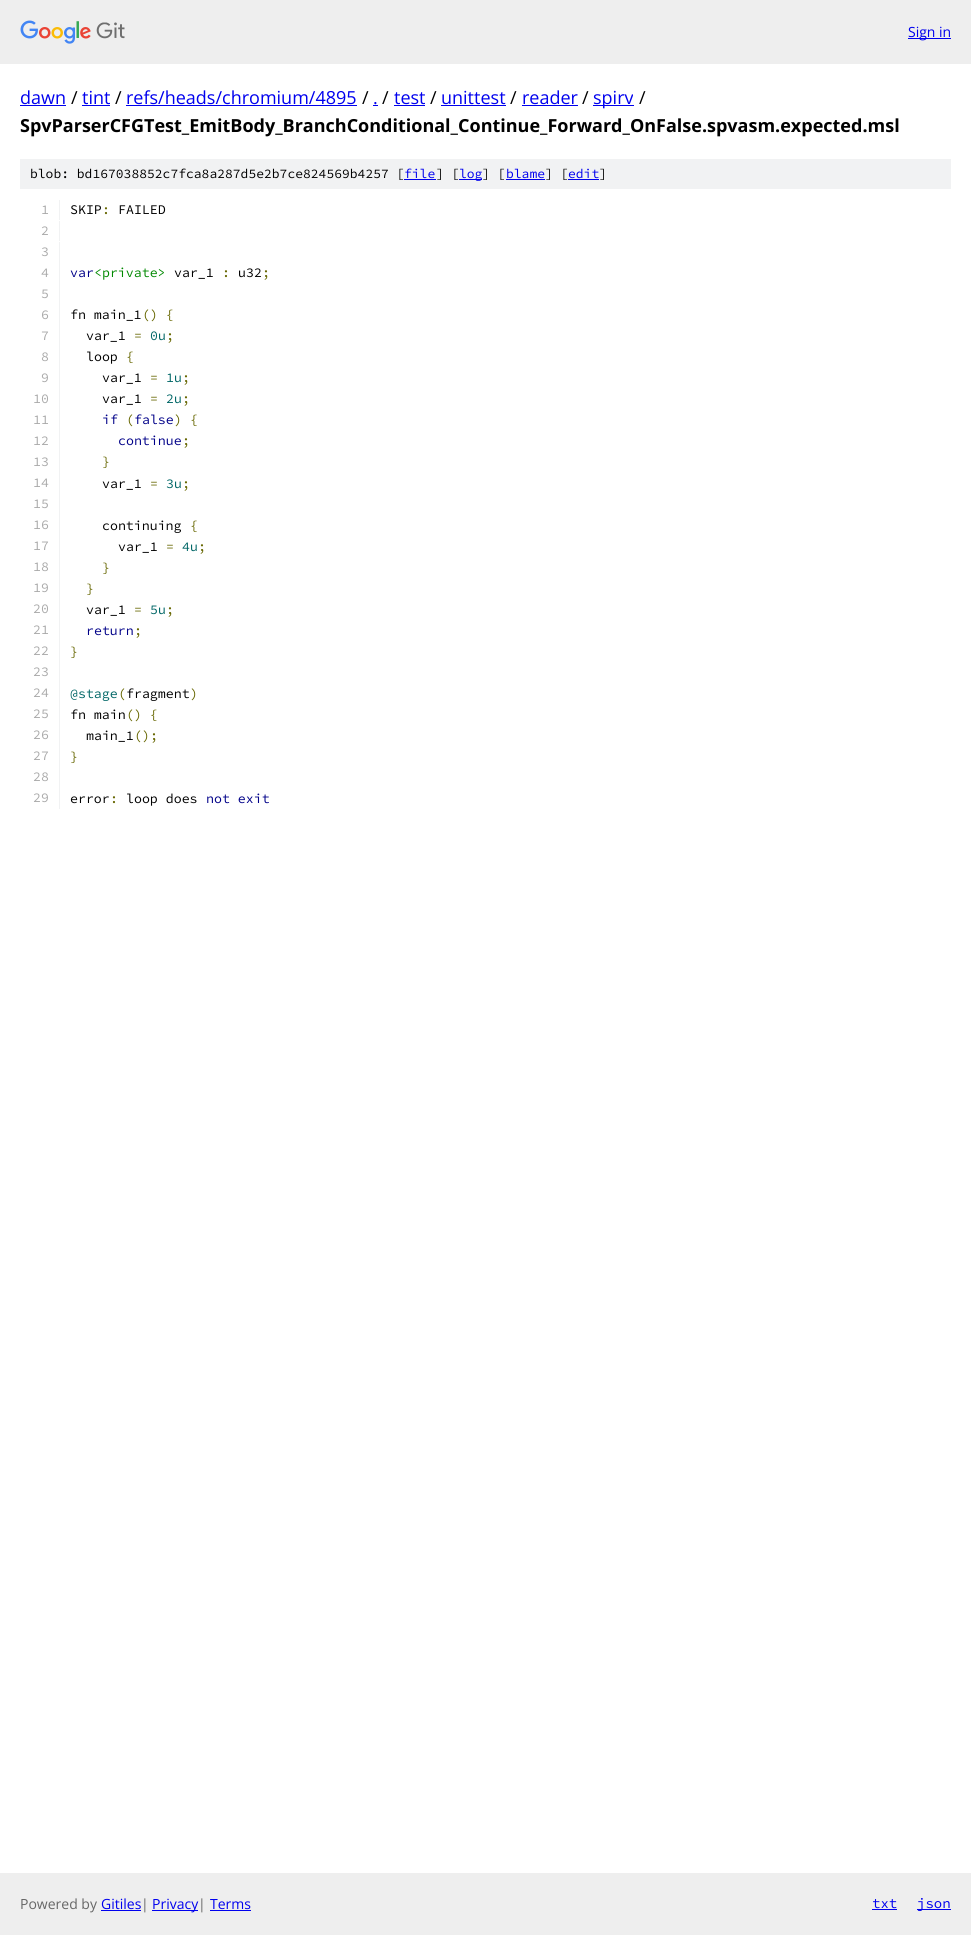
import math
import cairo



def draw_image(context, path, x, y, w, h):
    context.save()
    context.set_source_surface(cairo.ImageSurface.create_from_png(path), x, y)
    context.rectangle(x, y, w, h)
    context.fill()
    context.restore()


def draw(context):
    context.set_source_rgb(1, 1, 1)
    context.paint()
    context.set_source_rgb(238 / 255, 238 / 255, 238 / 255)
    context.rectangle(0, 0, 971, 64)
    context.fill()
    draw_image(context, "images/1.png", 20, 20, 105, 24)
    context.set_source_rgb(0, 0, 238 / 255)
    context.rectangle(908, 38, 43, 1)
    context.fill()
    context.rectangle(20, 105, 46, 1)
    context.fill()
    context.rectangle(82, 105, 28, 1)
    context.fill()
    context.rectangle(126, 105, 231, 1)
    context.fill()
    context.rectangle(373, 105, 5, 1)
    context.fill()
    context.rectangle(394, 105, 31, 1)
    context.fill()
    context.rectangle(441, 105, 65, 1)
    context.fill()
    context.rectangle(522, 105, 56, 1)
    context.fill()
    context.rectangle(593, 105, 41, 1)
    context.fill()
    context.set_source_rgb(241 / 255, 242 / 255, 243 / 255)
    context.rectangle(20, 159, 931, 30)
    context.fill()
    context.set_source_rgb(0, 0, 238 / 255)
    context.rectangle(404, 179, 32, 1)
    context.fill()
    context.rectangle(459, 179, 23, 1)
    context.fill()
    context.rectangle(506, 179, 39, 1)
    context.fill()
    context.rectangle(568, 179, 31, 1)
    context.fill()
    context.set_source_rgb(241 / 255, 242 / 255, 243 / 255)
    context.rectangle(59, 200, 1, 20)
    context.fill()
    context.rectangle(59, 221, 1, 20)
    context.fill()
    context.rectangle(59, 242, 1, 567)
    context.fill()
    context.set_source_rgb(238 / 255, 238 / 255, 238 / 255)
    context.rectangle(0, 1873, 971, 62)
    context.fill()
    context.set_source_rgb(0, 0, 238 / 255)
    context.rectangle(101, 1910, 40, 1)
    context.fill()
    context.rectangle(152, 1910, 46, 1)
    context.fill()
    context.rectangle(210, 1910, 41, 1)
    context.fill()
    context.rectangle(872, 1909, 25, 1)
    context.fill()
    context.rectangle(917, 1909, 34, 1)
    context.fill()
    context.select_font_face("Open Sans")
    context.set_font_size(14)
    context.move_to(908, 37)
    context.show_text("Sign in")
    context.set_font_size(18)
    context.move_to(20, 104)
    context.show_text("dawn")
    context.set_source_rgb(0, 0, 0)
    context.move_to(71, 104)
    context.show_text("/")
    context.set_source_rgb(0, 0, 238 / 255)
    context.move_to(82, 104)
    context.show_text("tint")
    context.set_source_rgb(0, 0, 0)
    context.move_to(115, 104)
    context.show_text("/")
    context.set_source_rgb(0, 0, 238 / 255)
    context.move_to(126, 104)
    context.show_text("refs/heads/chromium/4895")
    context.set_source_rgb(0, 0, 0)
    context.move_to(362, 104)
    context.show_text("/")
    context.set_source_rgb(0, 0, 238 / 255)
    context.move_to(373, 104)
    context.show_text(".")
    context.set_source_rgb(0, 0, 0)
    context.move_to(382, 104)
    context.show_text("/")
    context.set_source_rgb(0, 0, 238 / 255)
    context.move_to(394, 104)
    context.show_text("test")
    context.set_source_rgb(0, 0, 0)
    context.move_to(430, 104)
    context.show_text("/")
    context.set_source_rgb(0, 0, 238 / 255)
    context.move_to(441, 104)
    context.show_text("unittest")
    context.set_source_rgb(0, 0, 0)
    context.move_to(510, 104)
    context.show_text("/")
    context.set_source_rgb(0, 0, 238 / 255)
    context.move_to(522, 104)
    context.show_text("reader")
    context.set_source_rgb(0, 0, 0)
    context.move_to(582, 104)
    context.show_text("/")
    context.set_source_rgb(0, 0, 238 / 255)
    context.move_to(593, 104)
    context.show_text("spirv")
    context.set_source_rgb(0, 0, 0)
    context.move_to(639, 104)
    context.show_text("/")
    context.select_font_face("Open Sans", cairo.FontSlant.NORMAL, cairo.FontWeight.BOLD)
    context.move_to(20, 132)
    context.show_text("SpvParserCFGTest_EmitBody_BranchConditional_Continue_Forward_OnFalse.spvasm.expected.msl")
    context.select_font_face("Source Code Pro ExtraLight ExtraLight")
    context.set_font_size(13)
    context.move_to(30, 178)
    context.show_text("blob: bd167038852c7fca8a287d5e2b7ce824569b4257 [")
    context.set_source_rgb(0, 0, 238 / 255)
    context.move_to(404, 178)
    context.show_text("file")
    context.set_source_rgb(0, 0, 0)
    context.move_to(436, 178)
    context.show_text("] [")
    context.set_source_rgb(0, 0, 238 / 255)
    context.move_to(459, 178)
    context.show_text("log")
    context.set_source_rgb(0, 0, 0)
    context.move_to(482, 178)
    context.show_text("] [")
    context.set_source_rgb(0, 0, 238 / 255)
    context.move_to(506, 178)
    context.show_text("blame")
    context.set_source_rgb(0, 0, 0)
    context.move_to(545, 178)
    context.show_text("] [")
    context.set_source_rgb(0, 0, 238 / 255)
    context.move_to(568, 178)
    context.show_text("edit")
    context.set_source_rgb(0, 0, 0)
    context.move_to(599, 178)
    context.show_text("]")
    context.set_font_size(13.25)
    context.set_source_rgb(170 / 255, 170 / 255, 170 / 255)
    context.move_to(41, 214)
    context.show_text("1")
    context.set_source_rgb(0, 0, 0)
    context.move_to(70, 214)
    context.show_text("SKIP")
    context.set_source_rgb(102 / 255, 102 / 255, 0)
    context.move_to(102, 214)
    context.show_text(":")
    context.set_source_rgb(0, 0, 0)
    context.move_to(118, 214)
    context.show_text("FAILED")
    context.set_source_rgb(170 / 255, 170 / 255, 170 / 255)
    context.move_to(41, 235)
    context.show_text("2")
    context.move_to(41, 256)
    context.show_text("3")
    context.move_to(41, 277)
    context.show_text("4")
    context.set_source_rgb(0, 0, 136 / 255)
    context.move_to(70, 277)
    context.show_text("var")
    context.set_source_rgb(0, 136 / 255, 0)
    context.move_to(94, 277)
    context.show_text("<private>")
    context.set_source_rgb(0, 0, 0)
    context.move_to(174, 277)
    context.show_text("var_1")
    context.set_source_rgb(102 / 255, 102 / 255, 0)
    context.move_to(222, 277)
    context.show_text(":")
    context.set_source_rgb(0, 0, 0)
    context.move_to(238, 277)
    context.show_text("u32")
    context.set_source_rgb(102 / 255, 102 / 255, 0)
    context.move_to(262, 277)
    context.show_text(";")
    context.set_source_rgb(170 / 255, 170 / 255, 170 / 255)
    context.move_to(41, 298)
    context.show_text("5")
    context.move_to(41, 319)
    context.show_text("6")
    context.set_source_rgb(0, 0, 0)
    context.move_to(70, 319)
    context.show_text("fn main_1")
    context.set_source_rgb(102 / 255, 102 / 255, 0)
    context.move_to(142, 319)
    context.show_text("() {")
    context.set_source_rgb(170 / 255, 170 / 255, 170 / 255)
    context.move_to(41, 340)
    context.show_text("7")
    context.set_source_rgb(0, 0, 0)
    context.move_to(86, 340)
    context.show_text("var_1")
    context.set_source_rgb(102 / 255, 102 / 255, 0)
    context.move_to(134, 340)
    context.show_text("=")
    context.set_source_rgb(0, 102 / 255, 102 / 255)
    context.move_to(150, 340)
    context.show_text("0u")
    context.set_source_rgb(102 / 255, 102 / 255, 0)
    context.move_to(166, 340)
    context.show_text(";")
    context.set_source_rgb(170 / 255, 170 / 255, 170 / 255)
    context.move_to(41, 361)
    context.show_text("8")
    context.set_source_rgb(0, 0, 0)
    context.move_to(86, 361)
    context.show_text("loop")
    context.set_source_rgb(102 / 255, 102 / 255, 0)
    context.move_to(126, 361)
    context.show_text("{")
    context.set_source_rgb(170 / 255, 170 / 255, 170 / 255)
    context.move_to(41, 382)
    context.show_text("9")
    context.set_source_rgb(0, 0, 0)
    context.move_to(102, 382)
    context.show_text("var_1")
    context.set_source_rgb(102 / 255, 102 / 255, 0)
    context.move_to(150, 382)
    context.show_text("=")
    context.set_source_rgb(0, 102 / 255, 102 / 255)
    context.move_to(166, 382)
    context.show_text("1u")
    context.set_source_rgb(102 / 255, 102 / 255, 0)
    context.move_to(182, 382)
    context.show_text(";")
    context.set_source_rgb(170 / 255, 170 / 255, 170 / 255)
    context.move_to(33, 403)
    context.show_text("10")
    context.set_source_rgb(0, 0, 0)
    context.move_to(102, 403)
    context.show_text("var_1")
    context.set_source_rgb(102 / 255, 102 / 255, 0)
    context.move_to(150, 403)
    context.show_text("=")
    context.set_source_rgb(0, 102 / 255, 102 / 255)
    context.move_to(166, 403)
    context.show_text("2u")
    context.set_source_rgb(102 / 255, 102 / 255, 0)
    context.move_to(182, 403)
    context.show_text(";")
    context.set_source_rgb(170 / 255, 170 / 255, 170 / 255)
    context.move_to(33, 424)
    context.show_text("11")
    context.set_source_rgb(0, 0, 136 / 255)
    context.move_to(102, 424)
    context.show_text("if")
    context.set_source_rgb(102 / 255, 102 / 255, 0)
    context.move_to(126, 424)
    context.show_text("(")
    context.set_source_rgb(0, 0, 136 / 255)
    context.move_to(134, 424)
    context.show_text("false")
    context.set_source_rgb(102 / 255, 102 / 255, 0)
    context.move_to(174, 424)
    context.show_text(") {")
    context.set_source_rgb(170 / 255, 170 / 255, 170 / 255)
    context.move_to(33, 445)
    context.show_text("12")
    context.set_source_rgb(0, 0, 136 / 255)
    context.move_to(118, 445)
    context.show_text("continue")
    context.set_source_rgb(102 / 255, 102 / 255, 0)
    context.move_to(182, 445)
    context.show_text(";")
    context.set_source_rgb(170 / 255, 170 / 255, 170 / 255)
    context.move_to(33, 466)
    context.show_text("13")
    context.set_source_rgb(102 / 255, 102 / 255, 0)
    context.move_to(102, 466)
    context.show_text("}")
    context.set_source_rgb(170 / 255, 170 / 255, 170 / 255)
    context.move_to(33, 487)
    context.show_text("14")
    context.set_source_rgb(0, 0, 0)
    context.move_to(102, 488)
    context.show_text("var_1")
    context.set_source_rgb(102 / 255, 102 / 255, 0)
    context.move_to(150, 488)
    context.show_text("=")
    context.set_source_rgb(0, 102 / 255, 102 / 255)
    context.move_to(166, 488)
    context.show_text("3u")
    context.set_source_rgb(102 / 255, 102 / 255, 0)
    context.move_to(182, 488)
    context.show_text(";")
    context.set_source_rgb(170 / 255, 170 / 255, 170 / 255)
    context.move_to(33, 508)
    context.show_text("15")
    context.move_to(33, 529)
    context.show_text("16")
    context.set_source_rgb(0, 0, 0)
    context.move_to(102, 530)
    context.show_text("continuing")
    context.set_source_rgb(102 / 255, 102 / 255, 0)
    context.move_to(190, 530)
    context.show_text("{")
    context.set_source_rgb(170 / 255, 170 / 255, 170 / 255)
    context.move_to(33, 550)
    context.show_text("17")
    context.set_source_rgb(0, 0, 0)
    context.move_to(118, 551)
    context.show_text("var_1")
    context.set_source_rgb(102 / 255, 102 / 255, 0)
    context.move_to(166, 551)
    context.show_text("=")
    context.set_source_rgb(0, 102 / 255, 102 / 255)
    context.move_to(182, 551)
    context.show_text("4u")
    context.set_source_rgb(102 / 255, 102 / 255, 0)
    context.move_to(198, 551)
    context.show_text(";")
    context.set_source_rgb(170 / 255, 170 / 255, 170 / 255)
    context.move_to(33, 571)
    context.show_text("18")
    context.set_source_rgb(102 / 255, 102 / 255, 0)
    context.move_to(102, 572)
    context.show_text("}")
    context.set_source_rgb(170 / 255, 170 / 255, 170 / 255)
    context.move_to(33, 592)
    context.show_text("19")
    context.set_source_rgb(102 / 255, 102 / 255, 0)
    context.move_to(86, 593)
    context.show_text("}")
    context.set_source_rgb(170 / 255, 170 / 255, 170 / 255)
    context.move_to(33, 613)
    context.show_text("20")
    context.set_source_rgb(0, 0, 0)
    context.move_to(86, 614)
    context.show_text("var_1")
    context.set_source_rgb(102 / 255, 102 / 255, 0)
    context.move_to(134, 614)
    context.show_text("=")
    context.set_source_rgb(0, 102 / 255, 102 / 255)
    context.move_to(150, 614)
    context.show_text("5u")
    context.set_source_rgb(102 / 255, 102 / 255, 0)
    context.move_to(166, 614)
    context.show_text(";")
    context.set_source_rgb(170 / 255, 170 / 255, 170 / 255)
    context.move_to(33, 634)
    context.show_text("21")
    context.set_source_rgb(0, 0, 136 / 255)
    context.move_to(86, 635)
    context.show_text("return")
    context.set_source_rgb(102 / 255, 102 / 255, 0)
    context.move_to(134, 635)
    context.show_text(";")
    context.set_source_rgb(170 / 255, 170 / 255, 170 / 255)
    context.move_to(33, 655)
    context.show_text("22")
    context.set_source_rgb(102 / 255, 102 / 255, 0)
    context.move_to(70, 656)
    context.show_text("}")
    context.set_source_rgb(170 / 255, 170 / 255, 170 / 255)
    context.move_to(33, 676)
    context.show_text("23")
    context.move_to(33, 697)
    context.show_text("24")
    context.set_source_rgb(0, 102 / 255, 102 / 255)
    context.move_to(70, 698)
    context.show_text("@stage")
    context.set_source_rgb(102 / 255, 102 / 255, 0)
    context.move_to(118, 698)
    context.show_text("(")
    context.set_source_rgb(0, 0, 0)
    context.move_to(126, 698)
    context.show_text("fragment")
    context.set_source_rgb(102 / 255, 102 / 255, 0)
    context.move_to(190, 698)
    context.show_text(")")
    context.set_source_rgb(170 / 255, 170 / 255, 170 / 255)
    context.move_to(33, 718)
    context.show_text("25")
    context.set_source_rgb(0, 0, 0)
    context.move_to(70, 719)
    context.show_text("fn main")
    context.set_source_rgb(102 / 255, 102 / 255, 0)
    context.move_to(126, 719)
    context.show_text("() {")
    context.set_source_rgb(170 / 255, 170 / 255, 170 / 255)
    context.move_to(33, 739)
    context.show_text("26")
    context.set_source_rgb(0, 0, 0)
    context.move_to(86, 740)
    context.show_text("main_1")
    context.set_source_rgb(102 / 255, 102 / 255, 0)
    context.move_to(134, 740)
    context.show_text("();")
    context.set_source_rgb(170 / 255, 170 / 255, 170 / 255)
    context.move_to(33, 760)
    context.show_text("27")
    context.set_source_rgb(102 / 255, 102 / 255, 0)
    context.move_to(70, 761)
    context.show_text("}")
    context.set_source_rgb(170 / 255, 170 / 255, 170 / 255)
    context.move_to(33, 781)
    context.show_text("28")
    context.move_to(33, 802)
    context.show_text("29")
    context.set_source_rgb(0, 0, 0)
    context.move_to(70, 803)
    context.show_text("error")
    context.set_source_rgb(102 / 255, 102 / 255, 0)
    context.move_to(110, 803)
    context.show_text(":")
    context.set_source_rgb(0, 0, 0)
    context.move_to(126, 803)
    context.show_text("loop does")
    context.set_source_rgb(0, 0, 136 / 255)
    context.move_to(206, 803)
    context.show_text("not exit")
    context.select_font_face("Open Sans")
    context.set_font_size(14)
    context.set_source_rgb(102 / 255, 102 / 255, 102 / 255)
    context.move_to(20, 1909)
    context.show_text("Powered by")
    context.set_source_rgb(0, 0, 238 / 255)
    context.move_to(101, 1909)
    context.show_text("Gitiles")
    context.set_source_rgb(102 / 255, 102 / 255, 102 / 255)
    context.move_to(141, 1909)
    context.show_text("|")
    context.set_source_rgb(0, 0, 238 / 255)
    context.move_to(152, 1909)
    context.show_text("Privacy")
    context.set_source_rgb(102 / 255, 102 / 255, 102 / 255)
    context.move_to(198, 1909)
    context.show_text("|")
    context.set_source_rgb(0, 0, 238 / 255)
    context.move_to(210, 1909)
    context.show_text("Terms")
    context.select_font_face("Source Code Pro ExtraLight ExtraLight")
    context.move_to(872, 1908)
    context.show_text("txt")
    context.move_to(917, 1908)
    context.show_text("json")


surface = cairo.ImageSurface(cairo.Format.RGB24, 971, 1935)
context = cairo.Context(surface)
options = cairo.FontOptions()
options.set_hint_metrics(cairo.HintMetrics.OFF)
options.set_hint_style(cairo.HintStyle.NONE)
context.set_font_options(options)
context.set_miter_limit(4)
draw(context)
surface.write_to_png("out.png")
